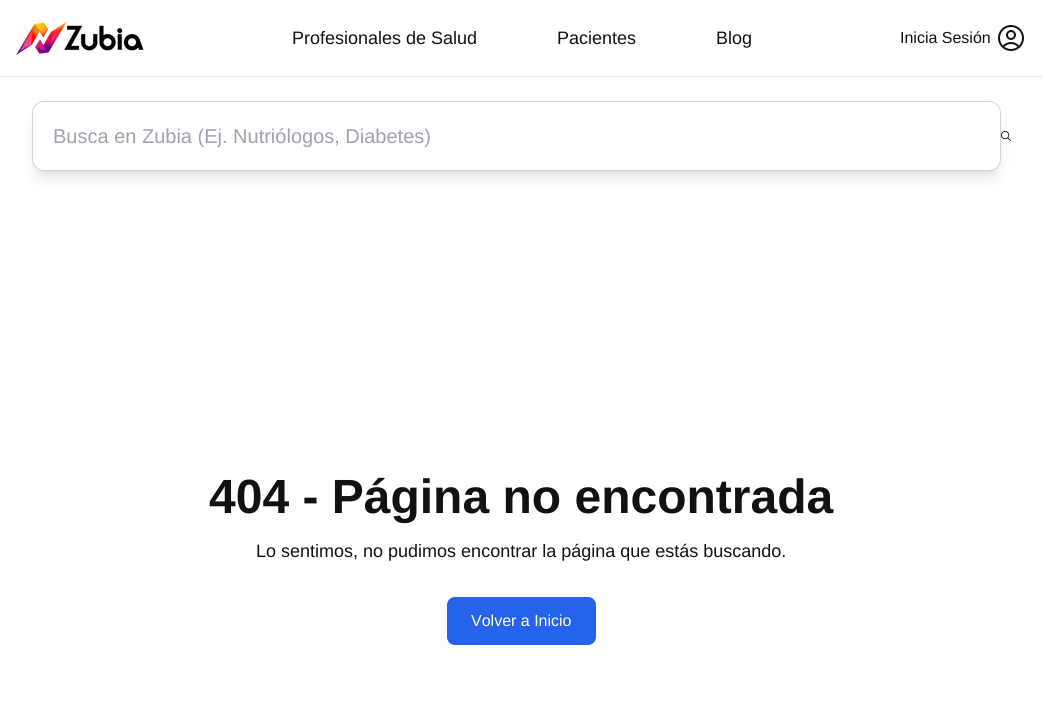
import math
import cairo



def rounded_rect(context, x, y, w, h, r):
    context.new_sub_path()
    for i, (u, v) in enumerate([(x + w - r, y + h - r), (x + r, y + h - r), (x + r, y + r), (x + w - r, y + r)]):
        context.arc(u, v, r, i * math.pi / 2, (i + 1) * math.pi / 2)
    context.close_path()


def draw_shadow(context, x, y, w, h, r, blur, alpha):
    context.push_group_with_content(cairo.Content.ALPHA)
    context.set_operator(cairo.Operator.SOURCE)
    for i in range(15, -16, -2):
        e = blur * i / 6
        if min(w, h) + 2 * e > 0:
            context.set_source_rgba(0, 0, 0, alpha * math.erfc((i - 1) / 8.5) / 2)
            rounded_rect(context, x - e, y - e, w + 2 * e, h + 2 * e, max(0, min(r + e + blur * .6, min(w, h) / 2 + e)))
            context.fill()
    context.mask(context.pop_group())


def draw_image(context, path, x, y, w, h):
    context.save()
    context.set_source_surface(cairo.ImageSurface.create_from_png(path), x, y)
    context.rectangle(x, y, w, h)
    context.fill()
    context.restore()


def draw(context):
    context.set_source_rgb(1, 1, 1)
    context.paint()
    context.set_source_rgb(229 / 255, 231 / 255, 235 / 255)
    context.rectangle(0, 76, 1043, 1)
    context.fill()
    draw_image(context, "images/1.png", 16, 21, 128, 34)
    draw_image(context, "images/2.png", 998, 25, 26, 26)
    context.set_source_rgb(0, 0, 0)
    draw_shadow(context, 36, 109, 961, 62, 8, 3, 0.1)
    draw_shadow(context, 35, 114, 963, 64, 9, 7.5, 0.1)
    context.set_source_rgb(1, 1, 1)
    rounded_rect(context, 32.5, 101.5, 968, 69, 11.5)
    context.fill_preserve()
    context.set_source_rgb(209 / 255, 213 / 255, 219 / 255)
    context.set_line_width(1)
    context.stroke()
    draw_image(context, "images/3.png", 1001, 131, 10, 10)
    context.set_source_rgb(37 / 255, 99 / 255, 235 / 255)
    rounded_rect(context, 447, 597, 149, 48, 8)
    context.fill()
    context.select_font_face("Liberation Sans")
    context.set_font_size(18)
    context.set_source_rgb(17 / 255, 17 / 255, 17 / 255)
    context.move_to(292, 44)
    context.show_text("Profesionales de Salud")
    context.move_to(557, 44)
    context.show_text("Pacientes")
    context.move_to(716, 44)
    context.show_text("Blog")
    context.set_font_size(16)
    context.move_to(900, 43)
    context.show_text("Inicia Sesión")
    context.set_font_size(20)
    context.set_source_rgb(156 / 255, 163 / 255, 175 / 255)
    context.move_to(53, 143)
    context.show_text("Busca en Zubia (Ej. Nutriólogos, Diabetes)")
    context.select_font_face("Liberation Sans", cairo.FontSlant.NORMAL, cairo.FontWeight.BOLD)
    context.set_font_size(48)
    context.set_source_rgb(17 / 255, 17 / 255, 17 / 255)
    context.move_to(209, 513)
    context.show_text("404 - Página no encontrada")
    context.select_font_face("Liberation Sans")
    context.set_font_size(18)
    context.move_to(256, 557)
    context.show_text("Lo sentimos, no pudimos encontrar la página que estás buscando.")
    context.set_font_size(16)
    context.set_source_rgb(1, 1, 1)
    context.move_to(471, 626)
    context.show_text("Volver a Inicio")


surface = cairo.ImageSurface(cairo.Format.RGB24, 1043, 728)
context = cairo.Context(surface)
options = cairo.FontOptions()
options.set_hint_metrics(cairo.HintMetrics.OFF)
options.set_hint_style(cairo.HintStyle.NONE)
context.set_font_options(options)
context.set_miter_limit(4)
draw(context)
surface.write_to_png("out.png")
